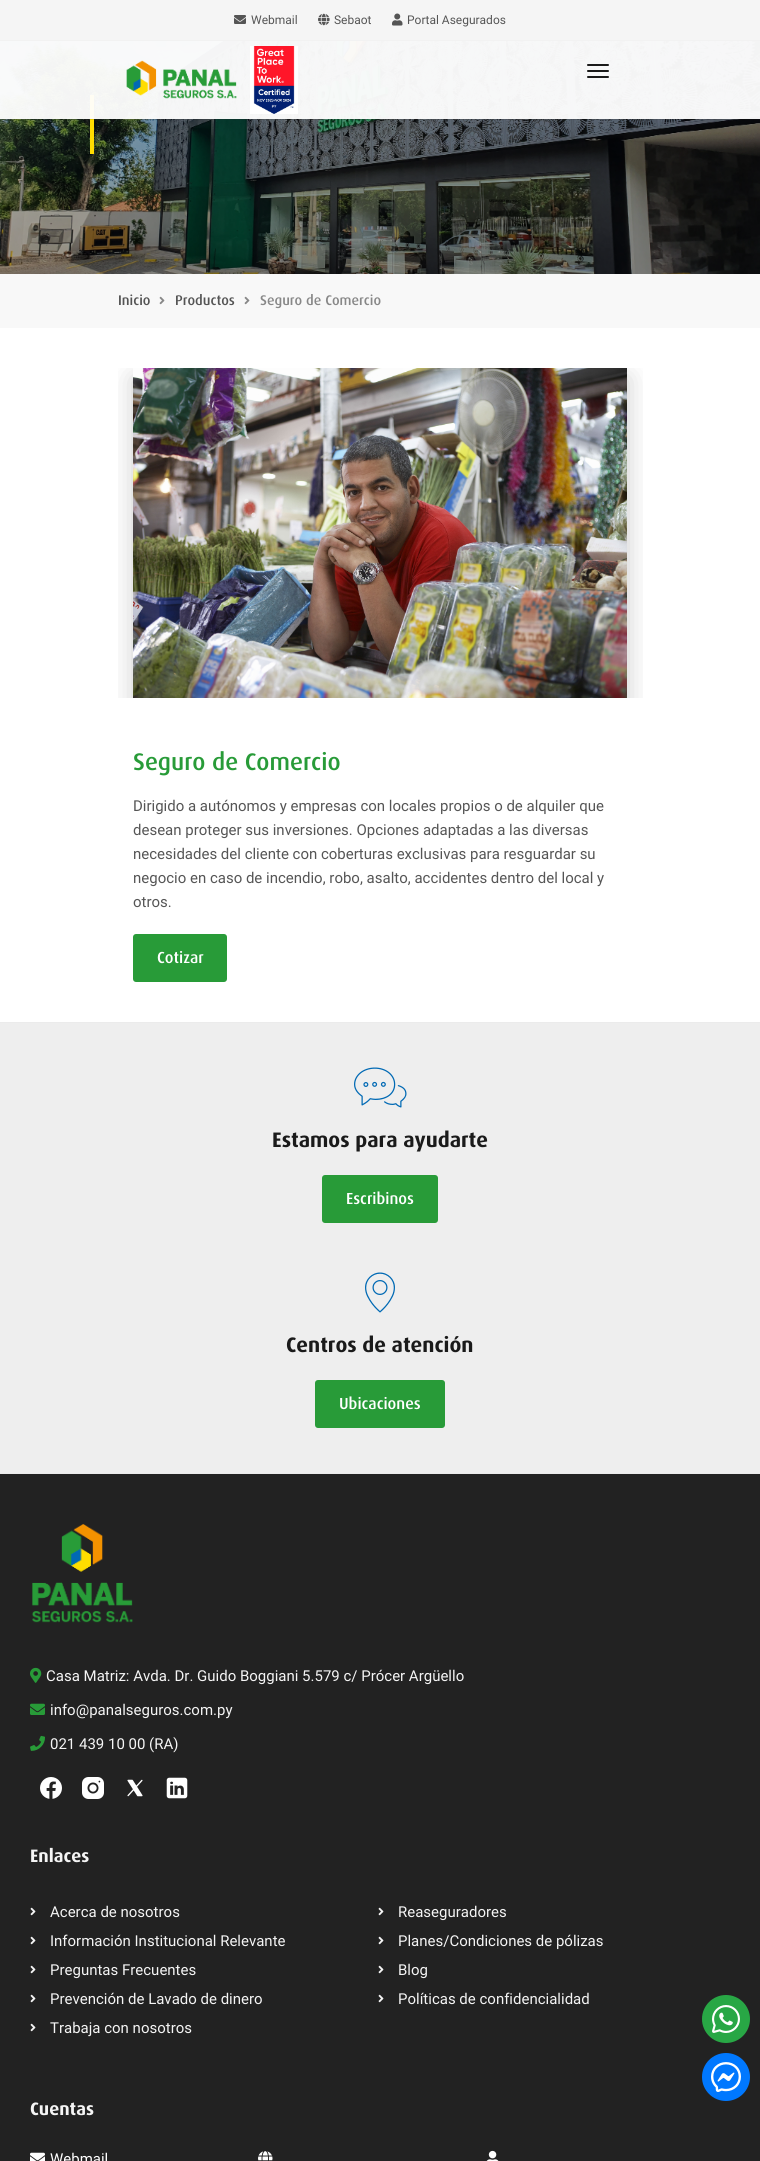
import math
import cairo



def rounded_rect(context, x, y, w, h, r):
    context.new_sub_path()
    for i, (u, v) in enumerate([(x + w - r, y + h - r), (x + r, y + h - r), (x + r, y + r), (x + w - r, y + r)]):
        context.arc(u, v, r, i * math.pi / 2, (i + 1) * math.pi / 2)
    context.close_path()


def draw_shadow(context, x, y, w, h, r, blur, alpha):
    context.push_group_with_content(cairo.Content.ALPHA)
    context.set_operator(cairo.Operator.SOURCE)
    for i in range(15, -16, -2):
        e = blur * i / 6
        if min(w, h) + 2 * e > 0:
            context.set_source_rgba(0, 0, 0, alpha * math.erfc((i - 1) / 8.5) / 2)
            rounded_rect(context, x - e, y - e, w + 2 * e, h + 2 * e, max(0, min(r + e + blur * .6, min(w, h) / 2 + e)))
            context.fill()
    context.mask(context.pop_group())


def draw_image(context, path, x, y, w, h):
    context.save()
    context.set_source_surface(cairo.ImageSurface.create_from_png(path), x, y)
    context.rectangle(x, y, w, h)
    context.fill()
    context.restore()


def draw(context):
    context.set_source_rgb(1, 1, 1)
    context.paint()
    draw_image(context, "images/6.png", 0, 41, 760, 233)
    context.set_source_rgb(1, 221 / 255, 0)
    context.rectangle(90, 95, 4, 59)
    context.fill()
    context.save()
    context.rectangle(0, 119, 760, 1)
    context.clip()
    context.set_source_rgb(41 / 255, 41 / 255, 41 / 255)
    draw_shadow(context, 0, 1, 760, 119, 0, 0.5, 0.15)
    context.restore()
    context.set_source_rgba(1, 1, 1, 0.95)
    context.rectangle(0, 41, 760, 78)
    context.fill()
    context.set_source_rgb(245 / 255, 245 / 255, 245 / 255)
    context.rectangle(0, 0, 760, 40)
    context.fill()
    context.set_source_rgb(242 / 255, 242 / 255, 242 / 255)
    context.rectangle(0, 40, 760, 1)
    context.fill()
    draw_image(context, "images/1.png", 234, 15, 12, 9)
    draw_image(context, "images/2.png", 318, 13, 12, 13)
    draw_image(context, "images/3.png", 392, 13, 11, 13)
    draw_image(context, "images/4.png", 126, 60, 111, 39)
    draw_image(context, "images/5.png", 250, 46, 48, 68)
    context.set_source_rgb(26 / 255, 26 / 255, 26 / 255)
    rounded_rect(context, 587, 64, 22, 2, 1)
    context.fill()
    rounded_rect(context, 587, 70, 22, 2, 1)
    context.fill()
    rounded_rect(context, 587, 76, 22, 2, 1)
    context.fill()
    context.set_source_rgb(248 / 255, 248 / 255, 248 / 255)
    context.rectangle(0, 274, 760, 54)
    context.fill()
    draw_image(context, "images/7.png", 159, 296, 6, 9)
    draw_image(context, "images/7.png", 244, 296, 6, 9)
    context.set_source_rgb(235 / 255, 235 / 255, 235 / 255)
    context.rectangle(0, 1022, 760, 1)
    context.fill()
    context.save()
    context.rectangle(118, 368, 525, 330)
    context.clip()
    context.set_source_rgb(0, 0, 0)
    draw_shadow(context, 133, 378, 495, 330, 0, 12.5, 0.2)
    context.restore()
    draw_image(context, "images/8.png", 133, 368, 494, 330)
    context.set_source_rgb(40 / 255, 155 / 255, 56 / 255)
    rounded_rect(context, 133, 934, 94, 48, 3)
    context.fill()
    context.set_source_rgb(238 / 255, 238 / 255, 238 / 255)
    context.rectangle(0, 1023, 760, 450)
    context.fill()
    context.set_source_rgb(235 / 255, 235 / 255, 235 / 255)
    context.rectangle(0, 1473, 760, 1)
    context.fill()
    draw_image(context, "images/9.png", 354, 1067, 53, 41)
    context.set_source_rgb(40 / 255, 155 / 255, 56 / 255)
    rounded_rect(context, 322, 1175, 116, 48, 3)
    context.fill()
    draw_image(context, "images/10.png", 365, 1272, 30, 41)
    rounded_rect(context, 315, 1380, 130, 48, 3)
    context.fill()
    context.set_source_rgb(34 / 255, 34 / 255, 34 / 255)
    context.rectangle(0, 1474, 760, 687)
    context.fill()
    draw_image(context, "images/11.png", 32, 1524, 101, 99)
    draw_image(context, "images/12.png", 30, 1667, 12, 16)
    draw_image(context, "images/13.png", 30, 1703, 15, 12)
    draw_image(context, "images/14.png", 30, 1735, 15, 16)
    draw_image(context, "images/15.png", 40, 1777, 22, 22)
    draw_image(context, "images/16.png", 82, 1777, 22, 22)
    draw_image(context, "images/17.png", 127, 1779, 16, 18)
    draw_image(context, "images/18.png", 166, 1777, 22, 22)
    draw_image(context, "images/19.png", 30, 1907, 6, 9)
    draw_image(context, "images/19.png", 378, 1907, 6, 9)
    draw_image(context, "images/19.png", 30, 1936, 6, 9)
    draw_image(context, "images/19.png", 378, 1936, 6, 9)
    draw_image(context, "images/19.png", 30, 1965, 6, 9)
    draw_image(context, "images/19.png", 378, 1965, 6, 9)
    draw_image(context, "images/19.png", 30, 1994, 6, 9)
    draw_image(context, "images/19.png", 378, 1994, 6, 9)
    draw_image(context, "images/19.png", 30, 2023, 6, 9)
    draw_image(context, "images/20.png", 30, 2152, 15, 9)
    draw_image(context, "images/21.png", 258, 2151, 15, 10)
    draw_image(context, "images/22.png", 486, 2150, 13, 11)
    context.set_source_rgb(40 / 255, 167 / 255, 69 / 255)
    context.arc(726, 2019, 24, 0, 2 * math.pi)
    context.fill()
    draw_image(context, "images/23.png", 712, 2005, 28, 28)
    context.set_source_rgb(0, 120 / 255, 1)
    context.arc(726, 2077, 24, 0, 2 * math.pi)
    context.fill()
    draw_image(context, "images/24.png", 711, 2062, 30, 30)
    context.select_font_face("Roboto")
    context.set_font_size(12)
    context.set_source_rgb(85 / 255, 85 / 255, 85 / 255)
    context.move_to(251, 24)
    context.show_text("Webmail")
    context.move_to(334, 24)
    context.show_text("Sebaot")
    context.move_to(407, 24)
    context.show_text("Portal Asegurados")
    context.select_font_face("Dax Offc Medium")
    context.set_font_size(14)
    context.move_to(118, 305)
    context.show_text("Inicio")
    context.move_to(175, 305)
    context.show_text("Productos")
    context.set_source_rgb(136 / 255, 136 / 255, 136 / 255)
    context.move_to(260, 305)
    context.show_text("Seguro de Comercio")
    context.set_font_size(24)
    context.set_source_rgb(40 / 255, 155 / 255, 56 / 255)
    context.move_to(133, 770)
    context.show_text("Seguro de Comercio")
    context.select_font_face("Roboto")
    context.set_font_size(15)
    context.set_source_rgb(85 / 255, 85 / 255, 85 / 255)
    context.move_to(133, 811)
    context.show_text("Dirigido a autónomos y empresas con locales propios o de alquiler que")
    context.move_to(133, 835)
    context.show_text("desean proteger sus inversiones. Opciones adaptadas a las diversas")
    context.move_to(133, 859)
    context.show_text("necesidades del cliente con coberturas exclusivas para resguardar su")
    context.move_to(133, 883)
    context.show_text("negocio en caso de incendio, robo, asalto, accidentes dentro del local y")
    context.move_to(133, 907)
    context.show_text("otros.")
    context.select_font_face("Dax Offc Medium")
    context.set_font_size(16)
    context.set_source_rgb(1, 1, 1)
    context.move_to(157, 963)
    context.show_text("Cotizar")
    context.select_font_face("Dax Offc", cairo.FontSlant.NORMAL, cairo.FontWeight.BOLD)
    context.set_font_size(21)
    context.set_source_rgb(26 / 255, 26 / 255, 26 / 255)
    context.move_to(272, 1147)
    context.show_text("Estamos para ayudarte")
    context.select_font_face("Dax Offc Medium")
    context.set_font_size(16)
    context.set_source_rgb(1, 1, 1)
    context.move_to(346, 1204)
    context.show_text("Escribinos")
    context.select_font_face("Dax Offc", cairo.FontSlant.NORMAL, cairo.FontWeight.BOLD)
    context.set_font_size(21)
    context.set_source_rgb(26 / 255, 26 / 255, 26 / 255)
    context.move_to(286, 1352)
    context.show_text("Centros de atención")
    context.select_font_face("Dax Offc Medium")
    context.set_font_size(16)
    context.set_source_rgb(1, 1, 1)
    context.move_to(339, 1409)
    context.show_text("Ubicaciones")
    context.select_font_face("Roboto")
    context.set_font_size(15)
    context.set_source_rgb(245 / 255, 245 / 255, 245 / 255)
    context.move_to(46, 1681)
    context.show_text("Casa Matriz: Avda. Dr. Guido Boggiani 5.579 c/ Prócer Argüello")
    context.move_to(50, 1715)
    context.show_text("info@panalseguros.com.py")
    context.move_to(50, 1749)
    context.show_text("021 439 10 00 (RA)")
    context.select_font_face("Dax Offc", cairo.FontSlant.NORMAL, cairo.FontWeight.BOLD)
    context.set_font_size(18)
    context.move_to(30, 1862)
    context.show_text("Enlaces")
    context.select_font_face("Roboto")
    context.set_font_size(15)
    context.move_to(50, 1917)
    context.show_text("Acerca de nosotros")
    context.move_to(398, 1917)
    context.show_text("Reaseguradores")
    context.move_to(50, 1946)
    context.show_text("Información Institucional Relevante")
    context.move_to(398, 1946)
    context.show_text("Planes/Condiciones de pólizas")
    context.move_to(50, 1975)
    context.show_text("Preguntas Frecuentes")
    context.move_to(398, 1975)
    context.show_text("Blog")
    context.move_to(50, 2004)
    context.show_text("Prevención de Lavado de dinero")
    context.move_to(398, 2004)
    context.show_text("Políticas de confidencialidad")
    context.move_to(50, 2033)
    context.show_text("Trabaja con nosotros")
    context.select_font_face("Dax Offc", cairo.FontSlant.NORMAL, cairo.FontWeight.BOLD)
    context.set_font_size(18)
    context.move_to(30, 2115)
    context.show_text("Cuentas")
    context.select_font_face("Roboto")
    context.set_font_size(15)
    context.set_source_rgb(1, 1, 1)
    context.move_to(50, 2164)
    context.show_text("Webmail")


surface = cairo.ImageSurface(cairo.Format.RGB24, 760, 2161)
context = cairo.Context(surface)
options = cairo.FontOptions()
options.set_hint_metrics(cairo.HintMetrics.OFF)
options.set_hint_style(cairo.HintStyle.NONE)
context.set_font_options(options)
context.set_miter_limit(4)
draw(context)
surface.write_to_png("out.png")
